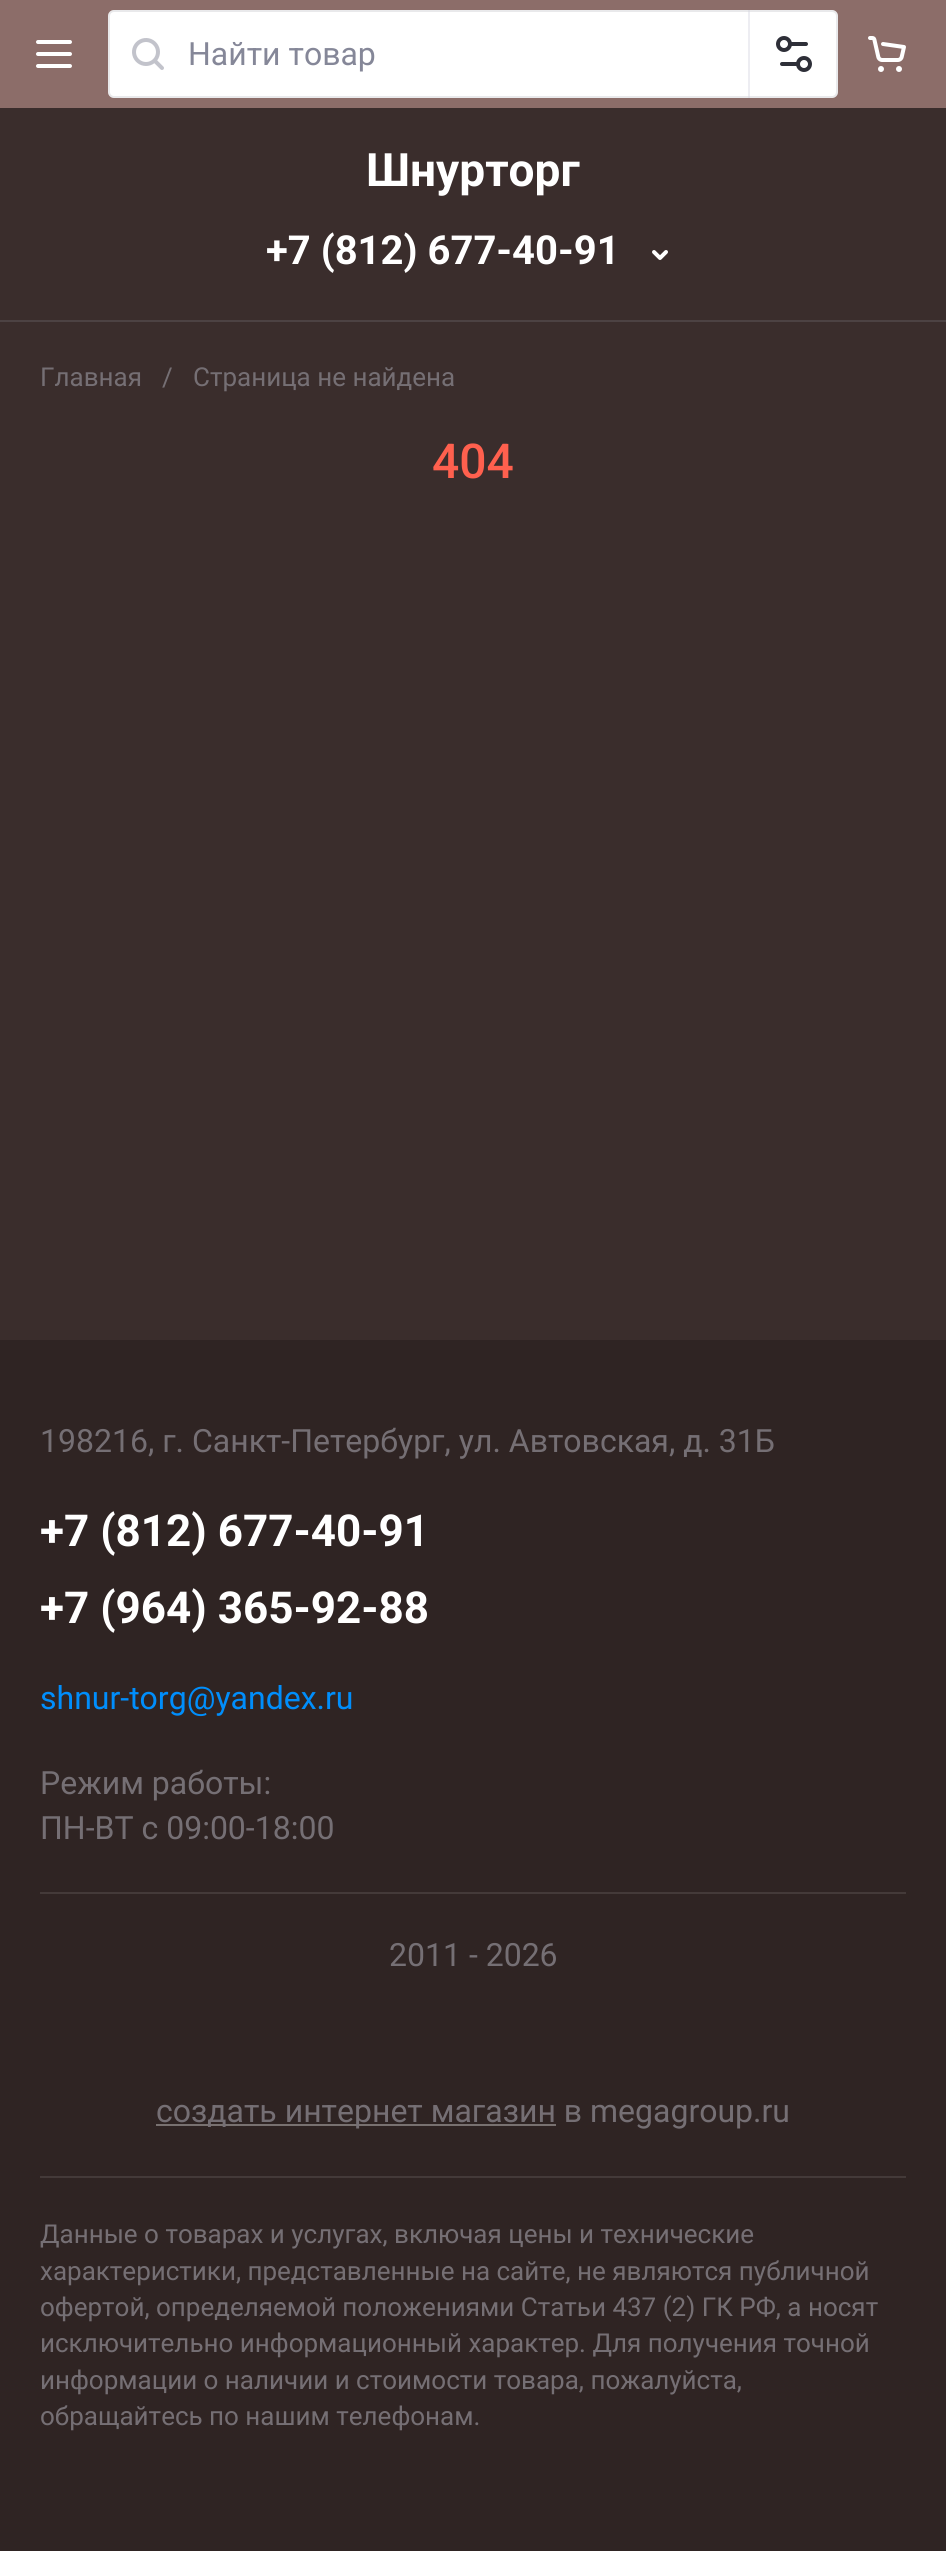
import math
import cairo



def rounded_rect(context, x, y, w, h, r):
    context.new_sub_path()
    for i, (u, v) in enumerate([(x + w - r, y + h - r), (x + r, y + h - r), (x + r, y + r), (x + w - r, y + r)]):
        context.arc(u, v, r, i * math.pi / 2, (i + 1) * math.pi / 2)
    context.close_path()


def draw_image(context, path, x, y, w, h):
    context.save()
    context.set_source_surface(cairo.ImageSurface.create_from_png(path), x, y)
    context.rectangle(x, y, w, h)
    context.fill()
    context.restore()


def draw(context):
    context.set_source_rgb(58 / 255, 45 / 255, 44 / 255)
    context.paint()
    context.set_source_rgb(140 / 255, 109 / 255, 105 / 255)
    context.rectangle(0, 0, 946, 108)
    context.fill()
    draw_image(context, "images/1.png", 36, 40, 36, 28)
    context.set_source_rgb(1, 1, 1)
    rounded_rect(context, 108, 10, 730, 88, 6)
    context.fill()
    rounded_rect(context, 109, 11, 728, 86, 5)
    context.set_source_rgba(147 / 255, 148 / 255, 159 / 255, 0.2)
    context.stroke()
    draw_image(context, "images/2.png", 132, 38, 32, 32)
    context.set_source_rgba(210 / 255, 211 / 255, 224 / 255, 0.4)
    context.rectangle(748, 10, 2, 88)
    context.fill()
    draw_image(context, "images/3.png", 776, 36, 36, 36)
    draw_image(context, "images/4.png", 868, 36, 38, 36)
    context.set_source_rgb(76 / 255, 66 / 255, 67 / 255)
    context.rectangle(0, 320, 946, 2)
    context.fill()
    draw_image(context, "images/5.png", 652, 250, 16, 10)
    context.set_source_rgb(47 / 255, 36 / 255, 35 / 255)
    context.rectangle(0, 1340, 946, 1211)
    context.fill()
    context.set_source_rgb(68 / 255, 58 / 255, 57 / 255)
    context.rectangle(40, 1892, 866, 2)
    context.fill()
    context.rectangle(40, 2176, 866, 2)
    context.fill()
    context.set_source_rgb(120 / 255, 113 / 255, 112 / 255)
    context.rectangle(156, 2124, 400, 2)
    context.fill()
    context.select_font_face("Roboto")
    context.set_font_size(32)
    context.set_source_rgb(133 / 255, 135 / 255, 152 / 255)
    context.move_to(188, 65)
    context.show_text("Найти товар")
    context.select_font_face("Roboto", cairo.FontSlant.NORMAL, cairo.FontWeight.BOLD)
    context.set_font_size(46)
    context.set_source_rgb(1, 1, 1)
    context.move_to(366, 186)
    context.show_text("Шнурторг")
    context.set_font_size(40)
    context.move_to(266, 264)
    context.show_text("+7 (812) 677-40-91")
    context.select_font_face("Roboto")
    context.set_font_size(26)
    context.set_source_rgb(117 / 255, 111 / 255, 116 / 255)
    context.move_to(40, 386)
    context.show_text("Главная")
    context.move_to(162, 386)
    context.show_text("/")
    context.move_to(193, 386)
    context.show_text("Страница не найдена")
    context.select_font_face("Roboto Medium")
    context.set_font_size(48)
    context.set_source_rgb(1, 96 / 255, 78 / 255)
    context.move_to(432, 478)
    context.show_text("404")
    context.select_font_face("Roboto")
    context.set_font_size(32)
    context.set_source_rgb(117 / 255, 111 / 255, 116 / 255)
    context.move_to(40, 1452)
    context.show_text("198216, г. Санкт-Петербург, ул. Автовская, д. 31Б")
    context.select_font_face("Roboto", cairo.FontSlant.NORMAL, cairo.FontWeight.BOLD)
    context.set_font_size(44)
    context.set_source_rgb(1, 1, 1)
    context.move_to(40, 1546)
    context.show_text("+7 (812) 677-40-91")
    context.move_to(40, 1623)
    context.show_text("+7 (964) 365-92-88")
    context.select_font_face("Roboto")
    context.set_font_size(32)
    context.set_source_rgb(0, 142 / 255, 252 / 255)
    context.move_to(40, 1709)
    context.show_text("shnur-torg@yandex.ru")
    context.set_source_rgb(117 / 255, 111 / 255, 116 / 255)
    context.move_to(40, 1794)
    context.show_text("Режим работы:")
    context.move_to(40, 1839)
    context.show_text("ПН-ВТ с 09:00-18:00")
    context.move_to(389, 1966)
    context.show_text("2011 - 2026")
    context.move_to(156, 2122)
    context.show_text("создать интернет магазин в megagroup.ru")
    context.set_font_size(26)
    context.move_to(40, 2243)
    context.show_text("Данные о товарах и услугах, включая цены и технические")
    context.move_to(40, 2280)
    context.show_text("характеристики, представленные на сайте, не являются публичной")
    context.move_to(40, 2316)
    context.show_text("офертой, определяемой положениями Статьи 437 (2) ГК РФ, а носят")
    context.move_to(40, 2352)
    context.show_text("исключительно информационный характер. Для получения точной")
    context.move_to(40, 2389)
    context.show_text("информации о наличии и стоимости товара, пожалуйста,")
    context.move_to(40, 2425)
    context.show_text("обращайтесь по нашим телефонам.")


surface = cairo.ImageSurface(cairo.Format.RGB24, 946, 2551)
context = cairo.Context(surface)
options = cairo.FontOptions()
options.set_hint_metrics(cairo.HintMetrics.OFF)
options.set_hint_style(cairo.HintStyle.NONE)
context.set_font_options(options)
context.set_miter_limit(4)
draw(context)
surface.write_to_png("out.png")
